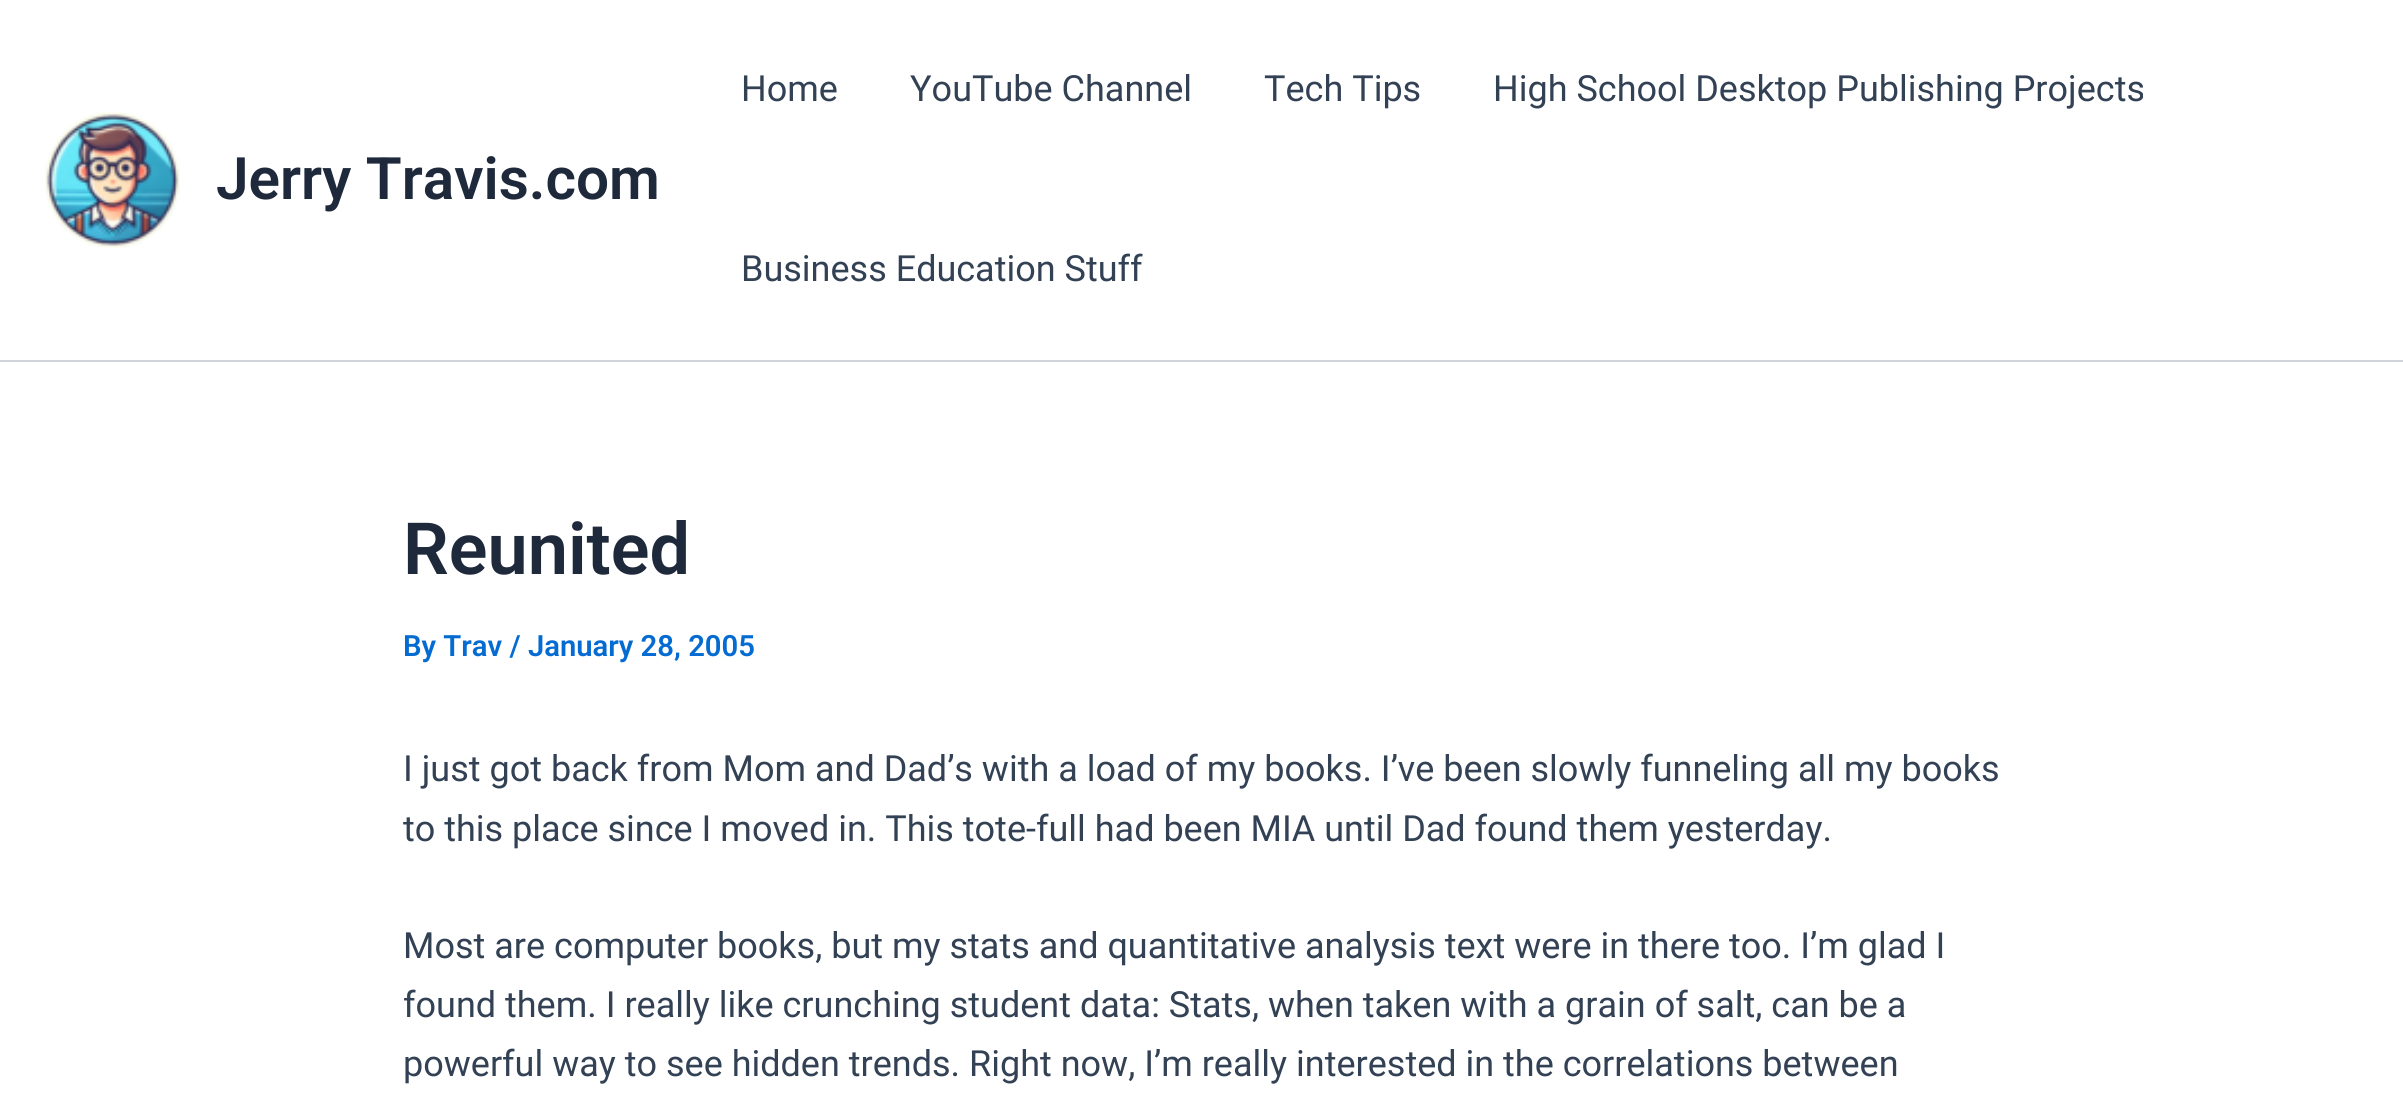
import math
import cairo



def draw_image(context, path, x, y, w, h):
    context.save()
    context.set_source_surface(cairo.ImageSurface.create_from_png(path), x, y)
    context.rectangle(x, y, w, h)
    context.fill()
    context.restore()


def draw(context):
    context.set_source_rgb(1, 1, 1)
    context.paint()
    context.set_source_rgb(209 / 255, 213 / 255, 219 / 255)
    context.rectangle(0, 360, 2403, 2)
    context.fill()
    draw_image(context, "images/1.png", 45, 112, 135, 136)
    context.select_font_face("Roboto SemiBold")
    context.set_font_size(58.5)
    context.set_source_rgb(30 / 255, 41 / 255, 59 / 255)
    context.move_to(216, 199)
    context.show_text("Jerry Travis.com")
    context.select_font_face("Roboto")
    context.set_font_size(36)
    context.set_source_rgb(51 / 255, 65 / 255, 85 / 255)
    context.move_to(741, 101)
    context.show_text("Home")
    context.move_to(910, 101)
    context.show_text("YouTube Channel")
    context.move_to(1264, 101)
    context.show_text("Tech Tips")
    context.move_to(1493, 101)
    context.show_text("High School Desktop Publishing Projects")
    context.move_to(741, 281)
    context.show_text("Business Education Stuff")
    context.select_font_face("Roboto SemiBold")
    context.set_font_size(72)
    context.set_source_rgb(30 / 255, 41 / 255, 59 / 255)
    context.move_to(403, 574)
    context.show_text("Reunited")
    context.set_font_size(29.25)
    context.set_source_rgb(4 / 255, 107 / 255, 210 / 255)
    context.move_to(403, 656)
    context.show_text("By Trav / January 28, 2005")
    context.select_font_face("Roboto")
    context.set_font_size(36)
    context.set_source_rgb(51 / 255, 65 / 255, 85 / 255)
    context.move_to(403, 781)
    context.show_text("I just got back from Mom and Dad’s with a load of my books. I’ve been slowly funneling all my books")
    context.move_to(403, 841)
    context.show_text("to this place since I moved in. This tote-full had been MIA until Dad found them yesterday.")
    context.move_to(403, 958)
    context.show_text("Most are computer books, but my stats and quantitative analysis text were in there too. I’m glad I")
    context.move_to(403, 1017)
    context.show_text("found them. I really like crunching student data: Stats, when taken with a grain of salt, can be a")
    context.move_to(403, 1076)
    context.show_text("powerful way to see hidden trends. Right now, I’m really interested in the correlations between")


surface = cairo.ImageSurface(cairo.Format.RGB24, 2403, 1107)
context = cairo.Context(surface)
options = cairo.FontOptions()
options.set_hint_metrics(cairo.HintMetrics.OFF)
options.set_hint_style(cairo.HintStyle.NONE)
context.set_font_options(options)
context.set_miter_limit(4)
draw(context)
surface.write_to_png("out.png")
